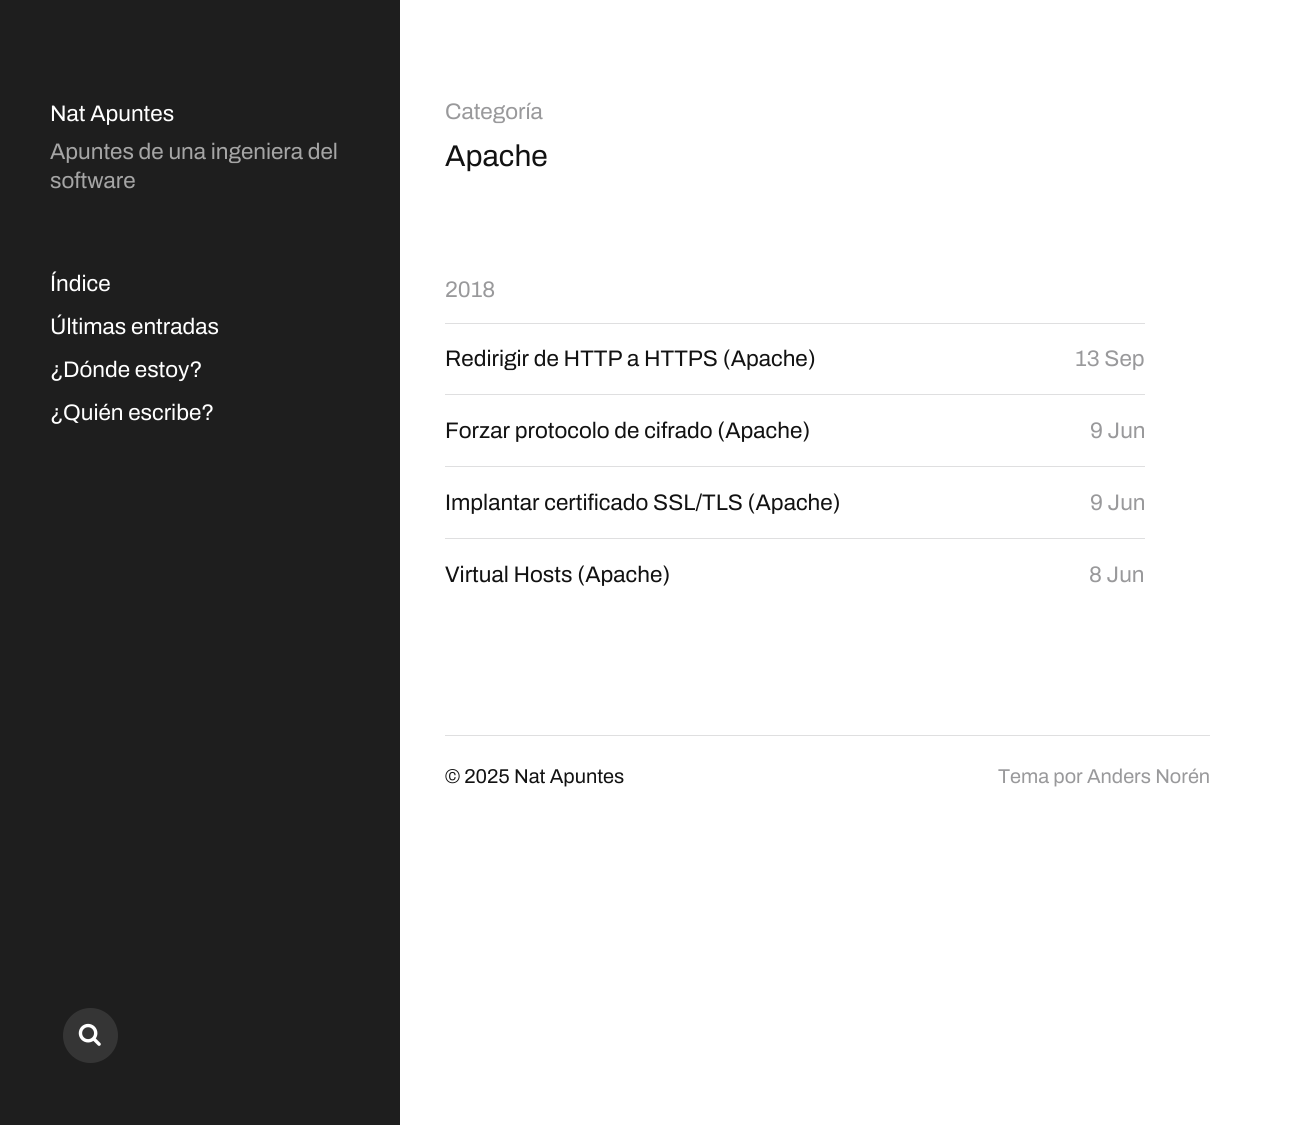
import math
import cairo



def draw_image(context, path, x, y, w, h):
    context.save()
    context.set_source_surface(cairo.ImageSurface.create_from_png(path), x, y)
    context.rectangle(x, y, w, h)
    context.fill()
    context.restore()


def draw(context):
    context.set_source_rgb(1, 1, 1)
    context.paint()
    context.set_source_rgb(30 / 255, 30 / 255, 30 / 255)
    context.rectangle(0, 0, 400, 1125)
    context.fill()
    context.set_source_rgb(53 / 255, 53 / 255, 53 / 255)
    context.arc(90.5, 1035.5, 27.5, 0, 2 * math.pi)
    context.fill()
    draw_image(context, "images/1.png", 78, 1023, 23, 23)
    context.set_source_rgb(223 / 255, 223 / 255, 224 / 255)
    context.rectangle(445, 323, 700, 1)
    context.fill()
    context.rectangle(445, 394, 700, 1)
    context.fill()
    context.rectangle(445, 466, 700, 1)
    context.fill()
    context.rectangle(445, 538, 700, 1)
    context.fill()
    context.rectangle(445, 735, 765, 1)
    context.fill()
    context.select_font_face("Archivo")
    context.set_font_size(22.5)
    context.set_source_rgb(1, 1, 1)
    context.move_to(50, 121)
    context.show_text("Nat Apuntes")
    context.set_source_rgb(165 / 255, 165 / 255, 165 / 255)
    context.move_to(50, 159)
    context.show_text("Apuntes de una ingeniera del")
    context.move_to(50, 188)
    context.show_text("software")
    context.set_source_rgb(1, 1, 1)
    context.move_to(50, 291)
    context.show_text("Índice")
    context.move_to(50, 334)
    context.show_text("Últimas entradas")
    context.move_to(50, 377)
    context.show_text("¿Dónde estoy?")
    context.move_to(50, 420)
    context.show_text("¿Quién escribe?")
    context.set_source_rgb(153 / 255, 153 / 255, 155 / 255)
    context.move_to(445, 119)
    context.show_text("Categoría")
    context.set_font_size(30)
    context.set_source_rgb(18 / 255, 18 / 255, 18 / 255)
    context.move_to(445, 166)
    context.show_text("Apache")
    context.set_font_size(22.5)
    context.set_source_rgb(153 / 255, 153 / 255, 155 / 255)
    context.move_to(445, 297)
    context.show_text("2018")
    context.set_source_rgb(18 / 255, 18 / 255, 18 / 255)
    context.move_to(445, 366)
    context.show_text("Redirigir de HTTP a HTTPS (Apache)")
    context.set_source_rgb(153 / 255, 153 / 255, 155 / 255)
    context.move_to(1075, 366)
    context.show_text("13 Sep")
    context.set_source_rgb(18 / 255, 18 / 255, 18 / 255)
    context.move_to(445, 438)
    context.show_text("Forzar protocolo de cifrado (Apache)")
    context.set_source_rgb(153 / 255, 153 / 255, 155 / 255)
    context.move_to(1090, 438)
    context.show_text("9 Jun")
    context.set_source_rgb(18 / 255, 18 / 255, 18 / 255)
    context.move_to(445, 510)
    context.show_text("Implantar certificado SSL/TLS (Apache)")
    context.set_source_rgb(153 / 255, 153 / 255, 155 / 255)
    context.move_to(1090, 510)
    context.show_text("9 Jun")
    context.set_source_rgb(18 / 255, 18 / 255, 18 / 255)
    context.move_to(445, 582)
    context.show_text("Virtual Hosts (Apache)")
    context.set_source_rgb(153 / 255, 153 / 255, 155 / 255)
    context.move_to(1089, 582)
    context.show_text("8 Jun")
    context.set_font_size(20)
    context.set_source_rgb(18 / 255, 18 / 255, 18 / 255)
    context.move_to(445, 783)
    context.show_text("© 2025 Nat Apuntes")
    context.set_source_rgb(153 / 255, 153 / 255, 155 / 255)
    context.move_to(998, 783)
    context.show_text("Tema por Anders Norén")


surface = cairo.ImageSurface(cairo.Format.RGB24, 1300, 1125)
context = cairo.Context(surface)
options = cairo.FontOptions()
options.set_hint_metrics(cairo.HintMetrics.OFF)
options.set_hint_style(cairo.HintStyle.NONE)
context.set_font_options(options)
context.set_miter_limit(4)
draw(context)
surface.write_to_png("out.png")
